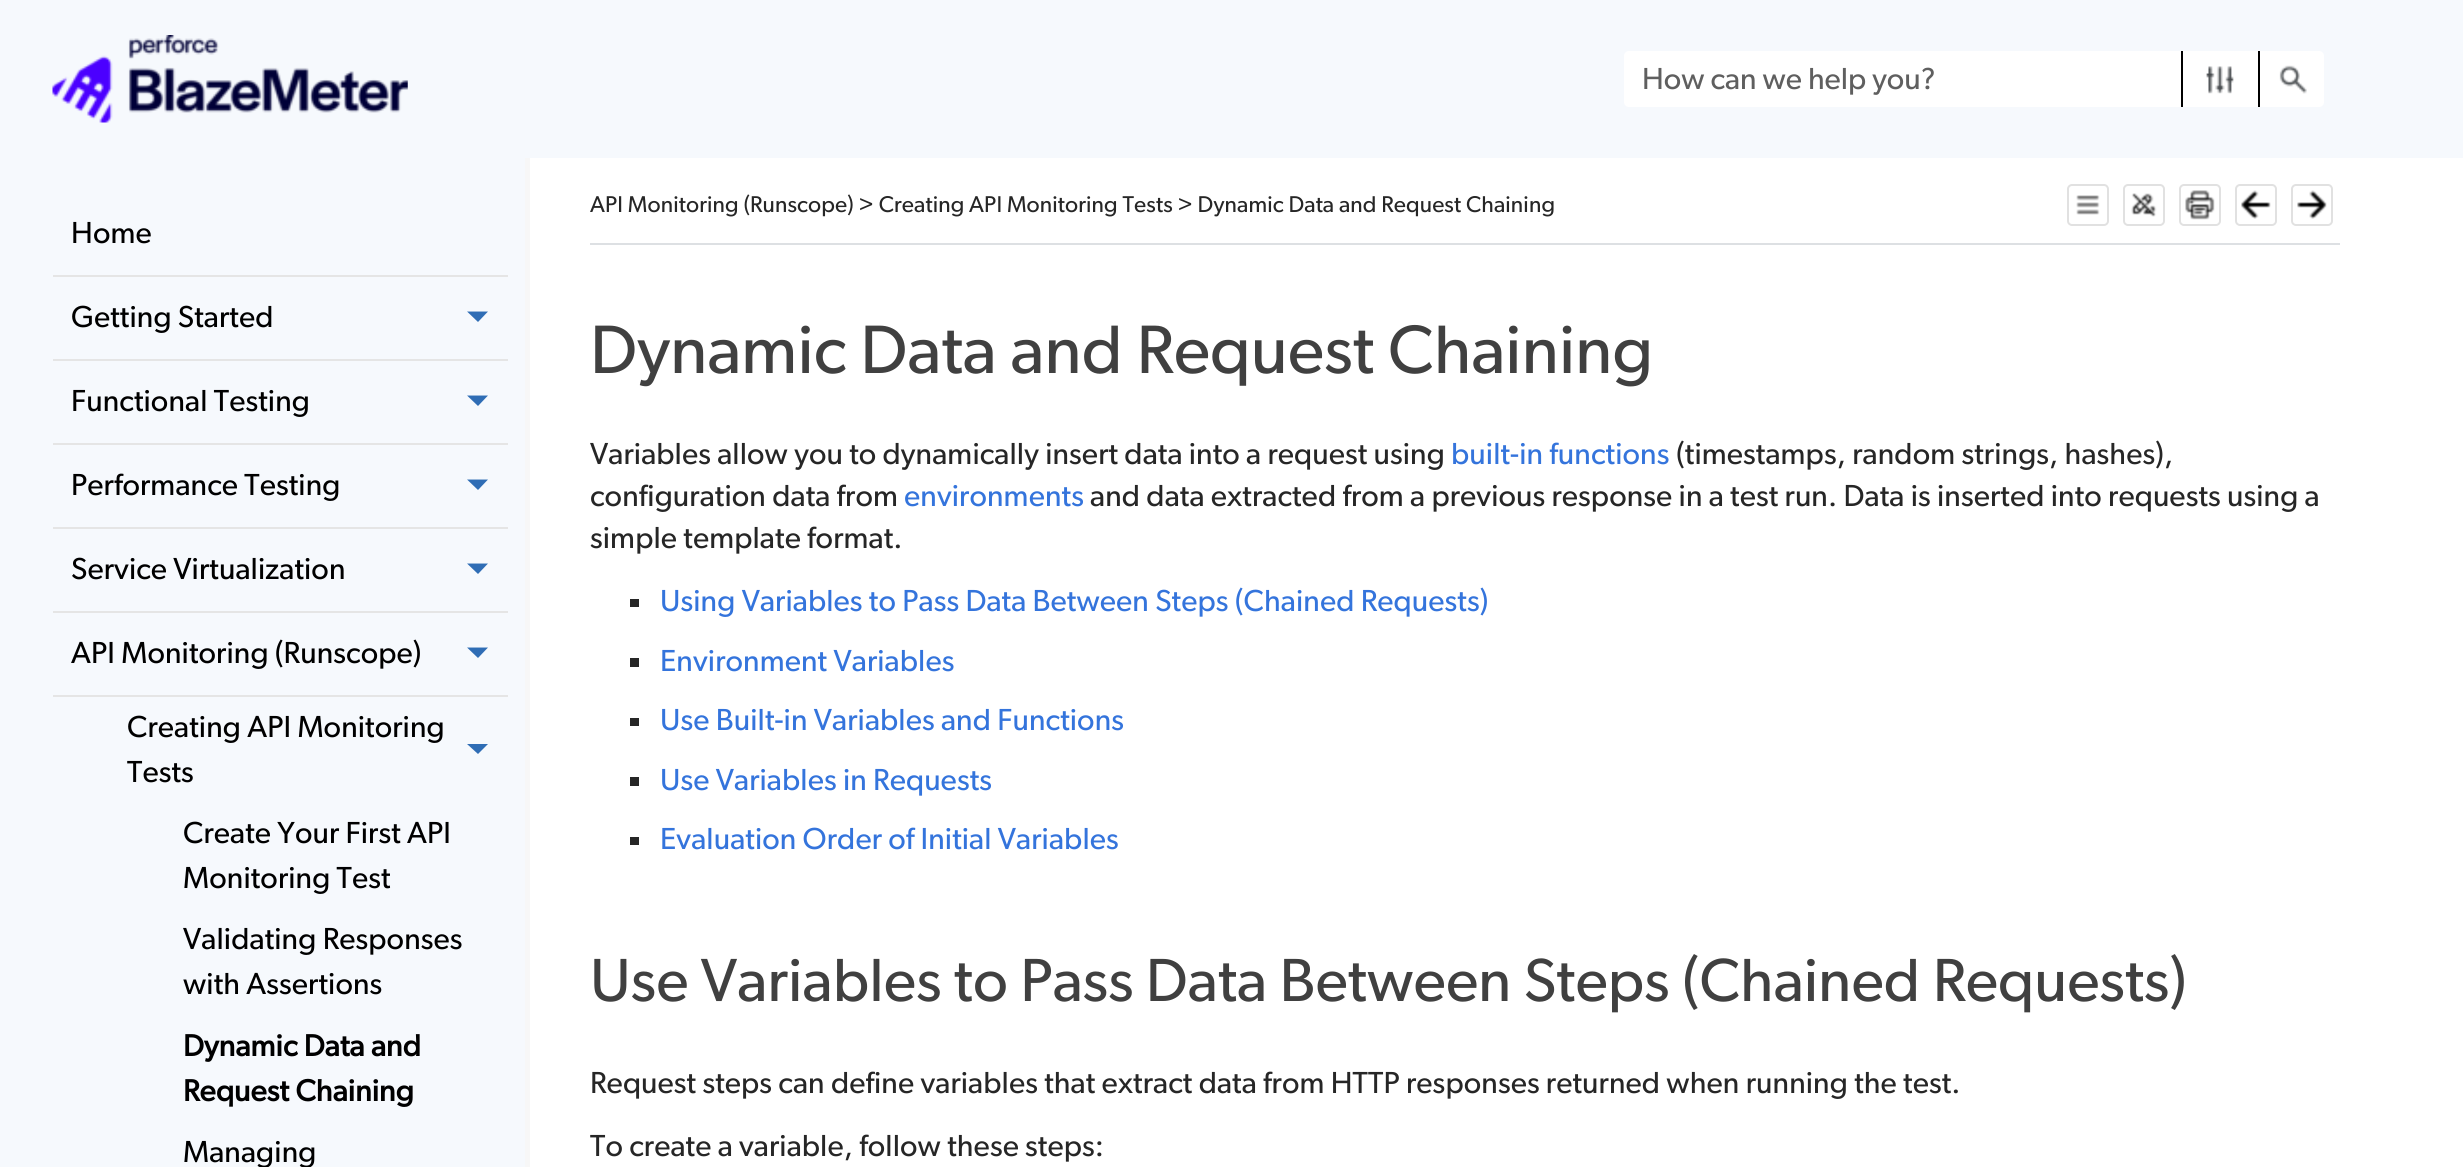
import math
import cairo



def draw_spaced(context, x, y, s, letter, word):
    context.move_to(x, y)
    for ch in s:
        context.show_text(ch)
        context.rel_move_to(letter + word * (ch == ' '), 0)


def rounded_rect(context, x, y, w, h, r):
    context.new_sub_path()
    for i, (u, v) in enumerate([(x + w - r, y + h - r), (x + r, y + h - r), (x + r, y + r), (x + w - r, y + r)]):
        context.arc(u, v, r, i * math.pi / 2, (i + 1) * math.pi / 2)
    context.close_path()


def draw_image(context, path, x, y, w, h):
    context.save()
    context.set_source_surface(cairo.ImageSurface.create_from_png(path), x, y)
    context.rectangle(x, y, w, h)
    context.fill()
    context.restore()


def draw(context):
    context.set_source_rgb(1, 1, 1)
    context.paint()
    context.set_source_rgb(246 / 255, 249 / 255, 253 / 255)
    context.rectangle(0, 0, 2463, 158)
    context.fill()
    draw_image(context, "images/1.png", 52, 35, 356, 88)
    context.set_source_rgb(1, 1, 1)
    rounded_rect(context, 1624, 51, 700, 56, 5)
    context.fill()
    draw_image(context, "images/2.png", 2206, 66, 28, 28)
    context.set_source_rgb(0, 0, 0)
    context.rectangle(2258, 51, 2, 56)
    context.fill()
    context.rectangle(2181, 51, 2, 56)
    context.fill()
    draw_image(context, "images/3.png", 2279, 65, 28, 29)
    context.set_source_rgb(246 / 255, 249 / 255, 253 / 255)
    context.rectangle(0, 158, 525, 1009)
    context.fill()
    context.set_source_rgb(229 / 255, 229 / 255, 229 / 255)
    context.rectangle(53, 275, 455, 2)
    context.fill()
    context.rectangle(53, 359, 455, 2)
    context.fill()
    context.set_source_rgb(47 / 255, 109 / 255, 181 / 255)
    context.new_path()
    context.move_to(467, 311.5)
    context.line_to(488, 311.5)
    context.line_to(478, 322)
    context.close_path()
    context.fill()
    context.set_source_rgb(229 / 255, 229 / 255, 229 / 255)
    context.rectangle(53, 443, 455, 2)
    context.fill()
    context.set_source_rgb(47 / 255, 109 / 255, 181 / 255)
    context.new_path()
    context.move_to(467, 395.5)
    context.line_to(488, 395.5)
    context.line_to(478, 406)
    context.close_path()
    context.fill()
    context.set_source_rgb(229 / 255, 229 / 255, 229 / 255)
    context.rectangle(53, 527, 455, 2)
    context.fill()
    context.set_source_rgb(47 / 255, 109 / 255, 181 / 255)
    context.new_path()
    context.move_to(467, 479.5)
    context.line_to(488, 479.5)
    context.line_to(478, 490)
    context.close_path()
    context.fill()
    context.set_source_rgb(229 / 255, 229 / 255, 229 / 255)
    context.rectangle(53, 611, 455, 2)
    context.fill()
    context.set_source_rgb(47 / 255, 109 / 255, 181 / 255)
    context.new_path()
    context.move_to(467, 563.5)
    context.line_to(488, 563.5)
    context.line_to(478, 574)
    context.close_path()
    context.fill()
    context.set_source_rgb(229 / 255, 229 / 255, 229 / 255)
    context.rectangle(53, 695, 455, 2)
    context.fill()
    context.set_source_rgb(47 / 255, 109 / 255, 181 / 255)
    context.new_path()
    context.move_to(467, 647.5)
    context.line_to(488, 647.5)
    context.line_to(478, 658)
    context.close_path()
    context.fill()
    context.new_path()
    context.move_to(467, 744)
    context.line_to(488, 744)
    context.line_to(478, 754)
    context.close_path()
    context.fill()
    context.set_source_rgb(247 / 255, 247 / 255, 247 / 255)
    context.rectangle(525, 158, 5, 1009)
    context.fill()
    context.set_source_rgb(221 / 255, 224 / 255, 227 / 255)
    context.rectangle(590, 243, 1750, 2)
    context.fill()
    rounded_rect(context, 2068, 185, 40, 40, 4)
    context.set_source_rgb(225 / 255, 225 / 255, 225 / 255)
    context.stroke()
    draw_image(context, "images/4.png", 2076, 195, 24, 20)
    rounded_rect(context, 2124, 185, 40, 40, 4)
    context.stroke()
    draw_image(context, "images/5.png", 2131, 193, 26, 24)
    rounded_rect(context, 2180, 185, 40, 40, 4)
    context.stroke()
    draw_image(context, "images/6.png", 2185, 190, 30, 30)
    rounded_rect(context, 2236, 185, 40, 40, 4)
    context.stroke()
    draw_image(context, "images/7.png", 2241, 190, 30, 29)
    rounded_rect(context, 2292, 185, 40, 40, 4)
    context.stroke()
    draw_image(context, "images/8.png", 2297, 190, 30, 29)
    context.set_source_rgb(38 / 255, 38 / 255, 38 / 255)
    context.rectangle(630, 599, 9, 8)
    context.fill()
    context.rectangle(630, 658, 9, 9)
    context.fill()
    context.rectangle(630, 718, 9, 8)
    context.fill()
    context.rectangle(630, 777, 9, 9)
    context.fill()
    context.rectangle(630, 837, 9, 8)
    context.fill()
    context.select_font_face("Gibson")
    context.set_font_size(28)
    context.set_source_rgb(95 / 255, 95 / 255, 95 / 255)
    context.move_to(1642, 89)
    context.show_text("How can we help you?")
    context.set_source_rgb(0, 0, 0)
    draw_spaced(context, 71, 243, "Home", 0.14, 0)
    draw_spaced(context, 71, 327, "Getting Started", 0.14, 0)
    draw_spaced(context, 71, 411, "Functional Testing", 0.14, 0)
    draw_spaced(context, 71, 495, "Performance Testing", 0.14, 0)
    draw_spaced(context, 71, 579, "Service Virtualization", 0.14, 0)
    draw_spaced(context, 71, 663, "API Monitoring (Runscope)", 0.14, 0)
    draw_spaced(context, 127, 737, "Creating API Monitoring", 0.14, 0)
    draw_spaced(context, 127, 782, "Tests", 0.14, 0)
    draw_spaced(context, 183, 843, "Create Your First API", 0.14, 0)
    draw_spaced(context, 183, 888, "Monitoring Test", 0.14, 0)
    draw_spaced(context, 183, 949, "Validating Responses", 0.14, 0)
    draw_spaced(context, 183, 994, "with Assertions", 0.14, 0)
    context.select_font_face("Gibson", cairo.FontSlant.NORMAL, cairo.FontWeight.BOLD)
    draw_spaced(context, 183, 1056, "Dynamic Data and", 0.14, 0)
    draw_spaced(context, 183, 1101, "Request Chaining", 0.14, 0)
    context.select_font_face("Gibson")
    draw_spaced(context, 183, 1162, "Managing", 0.14, 0)
    context.set_font_size(21)
    context.set_source_rgb(38 / 255, 38 / 255, 38 / 255)
    draw_spaced(context, 590, 212, "API Monitoring (Runscope) > Creating API Monitoring Tests > Dynamic Data and Request Chaining", 0.14, 0)
    context.set_font_size(63)
    context.set_source_rgb(64 / 255, 64 / 255, 64 / 255)
    draw_spaced(context, 590, 373, "Dynamic Data and Request Chaining", 0.14, 0)
    context.set_font_size(28)
    context.set_source_rgb(38 / 255, 38 / 255, 38 / 255)
    draw_spaced(context, 590, 464, "Variables allow you to dynamically insert data into a request using", 0.14, 0)
    context.set_source_rgb(52 / 255, 116 / 255, 220 / 255)
    draw_spaced(context, 1451, 464, "built-in functions", 0.14, 0)
    context.set_source_rgb(38 / 255, 38 / 255, 38 / 255)
    draw_spaced(context, 1676, 464, "(timestamps, random strings, hashes),", 0.14, 0)
    draw_spaced(context, 590, 506, "configuration data from", 0.14, 0)
    context.set_source_rgb(52 / 255, 116 / 255, 220 / 255)
    draw_spaced(context, 904, 506, "environments", 0.14, 0)
    context.set_source_rgb(38 / 255, 38 / 255, 38 / 255)
    draw_spaced(context, 1090, 506, "and data extracted from a previous response in a test run. Data is inserted into requests using a", 0.14, 0)
    draw_spaced(context, 590, 548, "simple template format.", 0.14, 0)
    context.set_source_rgb(52 / 255, 116 / 255, 220 / 255)
    draw_spaced(context, 660, 611, "Using Variables to Pass Data Between Steps (Chained Requests)", 0.14, 0)
    draw_spaced(context, 660, 671, "Environment Variables", 0.14, 0)
    draw_spaced(context, 660, 730, "Use Built-in Variables and Functions", 0.14, 0)
    draw_spaced(context, 660, 790, "Use Variables in Requests", 0.14, 0)
    draw_spaced(context, 660, 849, "Evaluation Order of Initial Variables", 0.14, 0)
    context.set_font_size(56)
    context.set_source_rgb(64 / 255, 64 / 255, 64 / 255)
    draw_spaced(context, 590, 1001, "Use Variables to Pass Data Between Steps (Chained Requests)", 0.14, 0)
    context.set_font_size(28)
    context.set_source_rgb(38 / 255, 38 / 255, 38 / 255)
    draw_spaced(context, 590, 1093, "Request steps can define variables that extract data from HTTP responses returned when running the test.", 0.14, 0)
    draw_spaced(context, 590, 1156, "To create a variable, follow these steps:", 0.14, 0)


surface = cairo.ImageSurface(cairo.Format.RGB24, 2463, 1167)
context = cairo.Context(surface)
options = cairo.FontOptions()
options.set_hint_metrics(cairo.HintMetrics.OFF)
options.set_hint_style(cairo.HintStyle.NONE)
context.set_font_options(options)
context.set_miter_limit(4)
draw(context)
surface.write_to_png("out.png")
